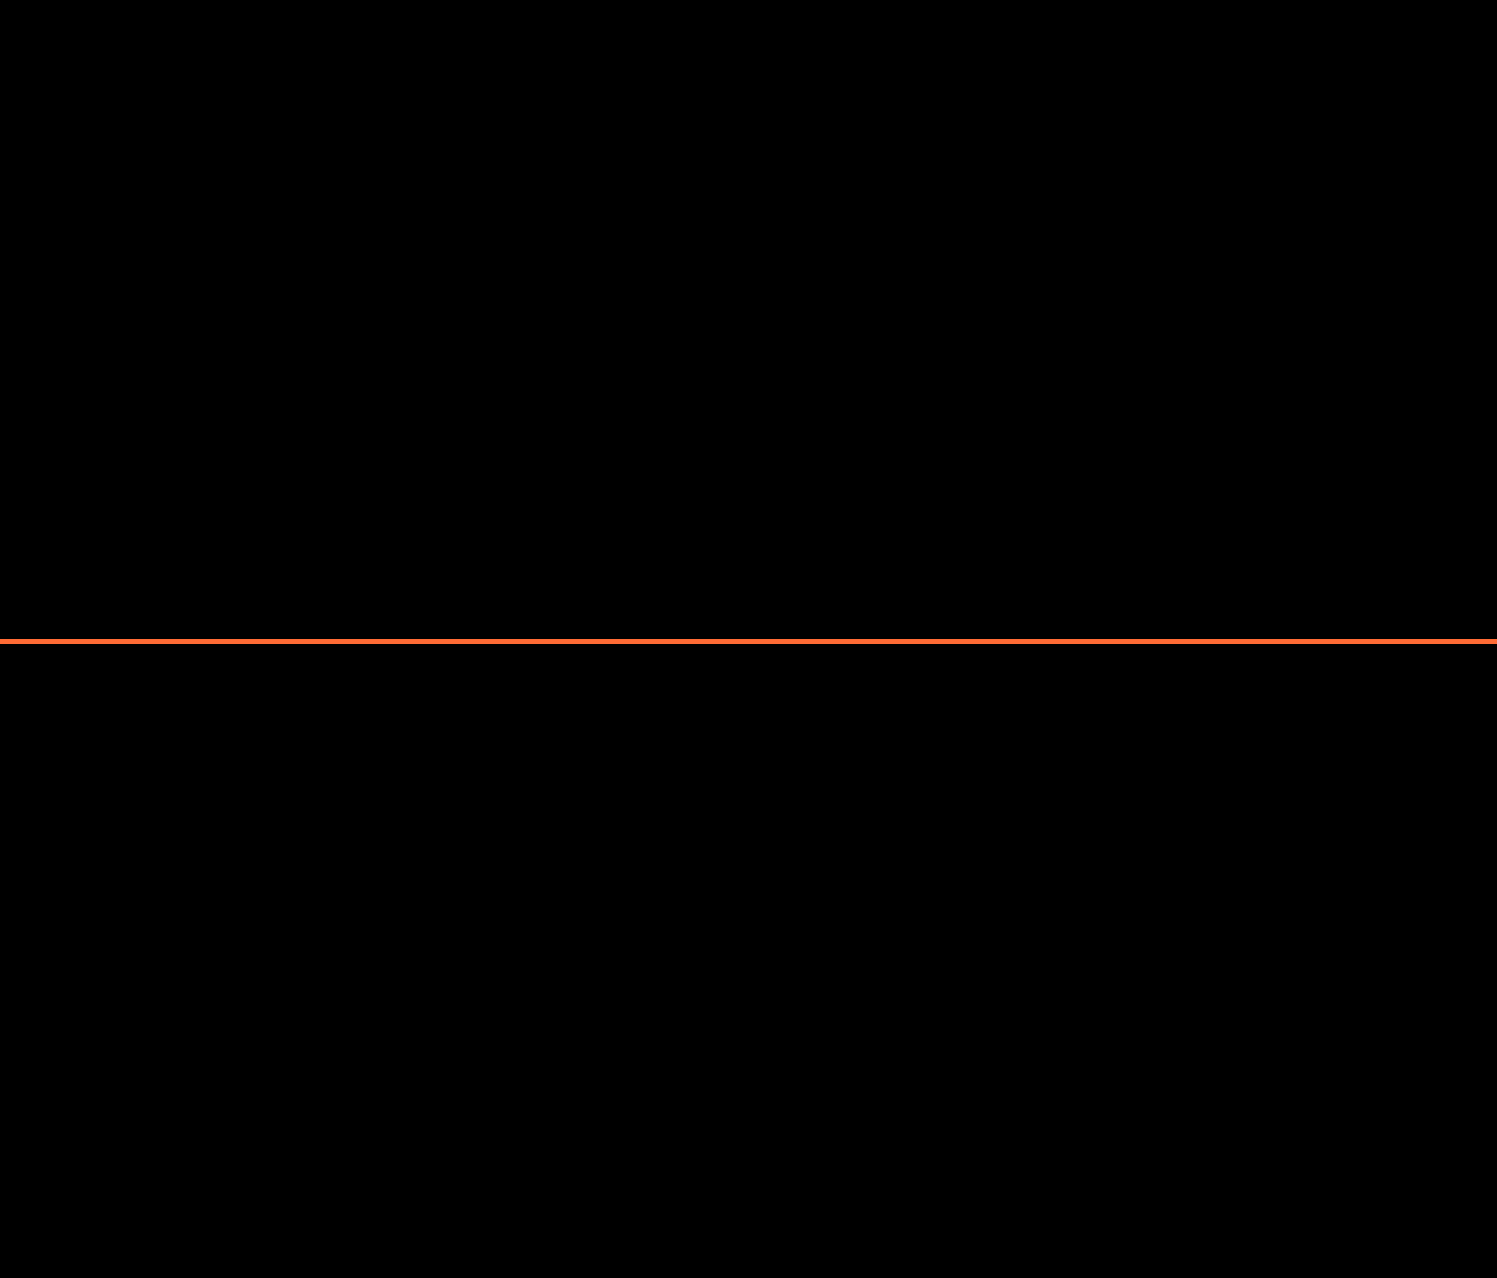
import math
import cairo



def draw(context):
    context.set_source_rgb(0, 0, 0)
    context.paint()
    context.set_source_rgb(1, 107 / 255, 53 / 255)
    context.rectangle(0, 639, 1497, 5)
    context.fill()


surface = cairo.ImageSurface(cairo.Format.RGB24, 1497, 1278)
context = cairo.Context(surface)
options = cairo.FontOptions()
options.set_hint_metrics(cairo.HintMetrics.OFF)
options.set_hint_style(cairo.HintStyle.NONE)
context.set_font_options(options)
context.set_miter_limit(4)
draw(context)
surface.write_to_png("out.png")
